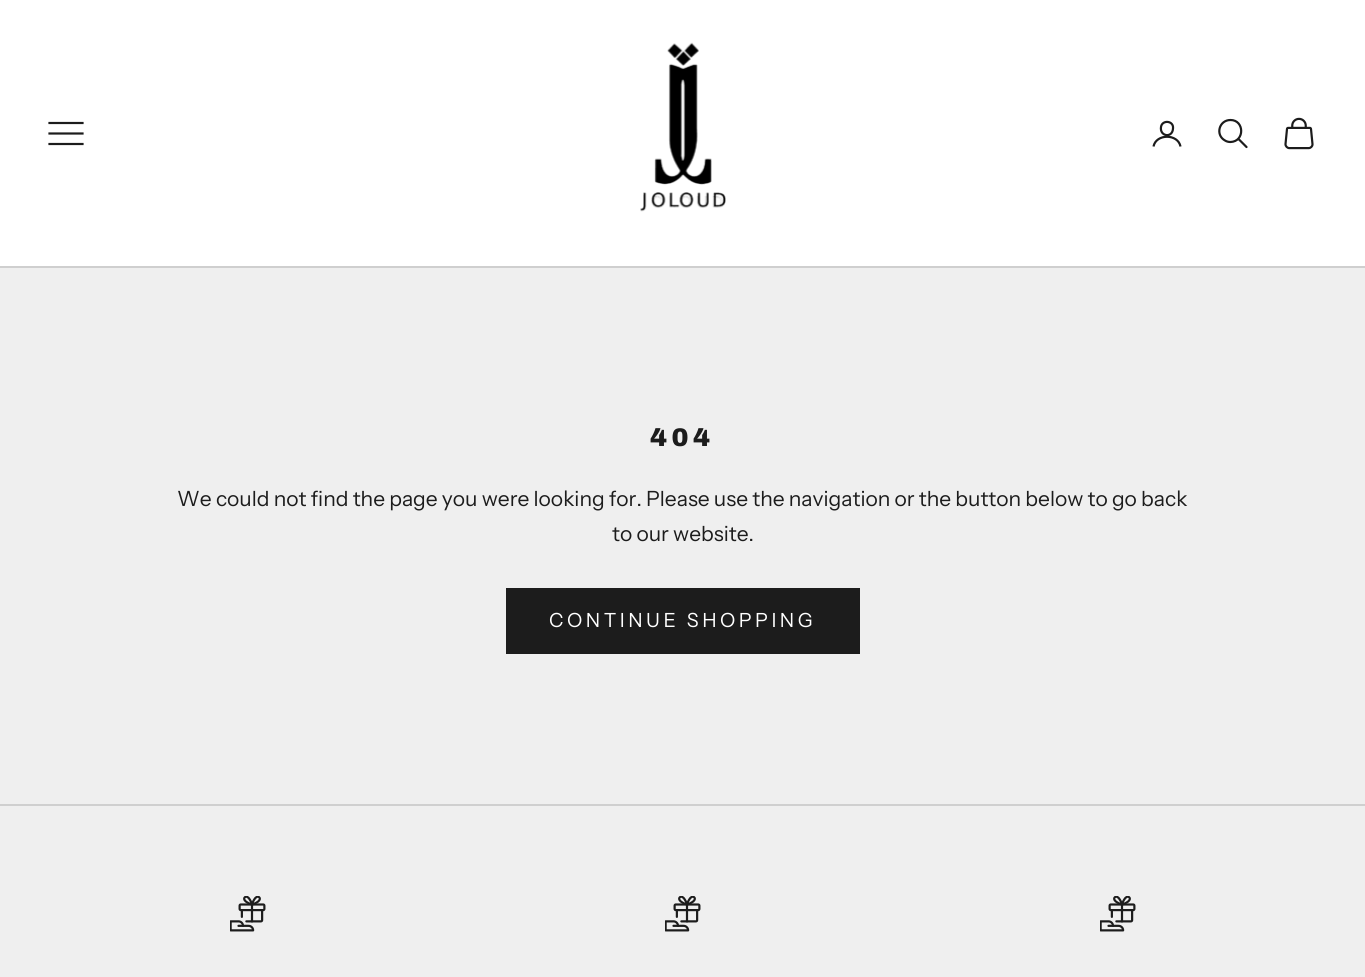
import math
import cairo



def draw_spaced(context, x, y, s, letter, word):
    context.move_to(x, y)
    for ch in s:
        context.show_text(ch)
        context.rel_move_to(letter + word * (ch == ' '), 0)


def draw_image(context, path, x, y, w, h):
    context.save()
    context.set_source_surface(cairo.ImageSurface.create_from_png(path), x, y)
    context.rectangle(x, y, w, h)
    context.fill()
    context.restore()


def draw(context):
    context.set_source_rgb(239 / 255, 239 / 255, 239 / 255)
    context.paint()
    context.set_source_rgb(1, 1, 1)
    context.rectangle(0, 0, 1365, 266)
    context.fill()
    context.set_source_rgb(207 / 255, 207 / 255, 207 / 255)
    context.rectangle(0, 266, 1365, 2)
    context.fill()
    context.new_path()
    context.move_to(49.5, 144)
    context.line_to(82.5, 144)
    context.move_to(49.5, 133.5)
    context.line_to(82.5, 133.5)
    context.move_to(49.5, 123)
    context.line_to(82.5, 123)
    context.set_source_rgb(28 / 255, 28 / 255, 28 / 255)
    context.set_line_width(2.2)
    context.set_line_cap(cairo.LineCap.SQUARE)
    context.stroke()
    draw_image(context, "images/1.png", 640, 42, 86, 170)
    context.new_path()
    context.move_to(1173, 128.5)
    context.curve_to(1172.5, 138.5, 1159.5, 136.5, 1161, 127)
    context.curve_to(1162, 119.5, 1174, 120.5, 1173, 128.5)
    context.close_path()
    context.set_line_cap(cairo.LineCap.ROUND)
    context.set_line_join(cairo.LineJoin.ROUND)
    context.stroke()
    context.new_path()
    context.move_to(1153.5, 146.5)
    context.curve_to(1156, 133.5, 1178, 133.5, 1180.5, 146.5)
    context.set_line_cap(cairo.LineCap.BUTT)
    context.set_line_join(cairo.LineJoin.MITER)
    context.stroke()
    context.new_path()
    context.move_to(1230.5, 120)
    context.curve_to(1219, 120, 1215, 135, 1225, 140.5)
    context.curve_to(1226.5, 141.5, 1228.5, 142, 1230.5, 142)
    context.curve_to(1245, 141.5, 1244.5, 120, 1230.5, 120)
    context.close_path()
    context.stroke()
    context.new_path()
    context.move_to(1239, 139.5)
    context.line_to(1246.5, 147)
    context.set_line_cap(cairo.LineCap.ROUND)
    context.stroke()
    draw_image(context, "images/2.png", 1284, 117, 30, 33)
    context.rectangle(507, 589, 352, 64)
    context.fill_preserve()
    context.set_line_width(2)
    context.set_line_cap(cairo.LineCap.BUTT)
    context.stroke()
    context.set_source_rgb(207 / 255, 207 / 255, 207 / 255)
    context.rectangle(0, 804, 1365, 2)
    context.fill()
    draw_image(context, "images/3.png", 230, 896, 36, 36)
    draw_image(context, "images/3.png", 665, 896, 36, 36)
    draw_image(context, "images/3.png", 1100, 896, 36, 36)
    context.select_font_face("Archivo Black")
    context.set_font_size(25.5)
    context.set_source_rgb(28 / 255, 28 / 255, 28 / 255)
    draw_spaced(context, 650, 446, "404", 4.5, 0)
    context.select_font_face("Instrument Sans")
    context.set_font_size(21)
    context.move_to(177, 506)
    context.show_text("We could not find the page you were looking for. Please use the navigation or the button below to go back")
    context.move_to(612, 541)
    context.show_text("to our website.")
    context.set_font_size(19.5)
    context.set_source_rgb(1, 1, 1)
    draw_spaced(context, 549, 627, "CONTINUE SHOPPING", 3.5, 0)


surface = cairo.ImageSurface(cairo.Format.RGB24, 1365, 977)
context = cairo.Context(surface)
options = cairo.FontOptions()
options.set_hint_metrics(cairo.HintMetrics.OFF)
options.set_hint_style(cairo.HintStyle.NONE)
context.set_font_options(options)
context.set_miter_limit(4)
draw(context)
surface.write_to_png("out.png")
